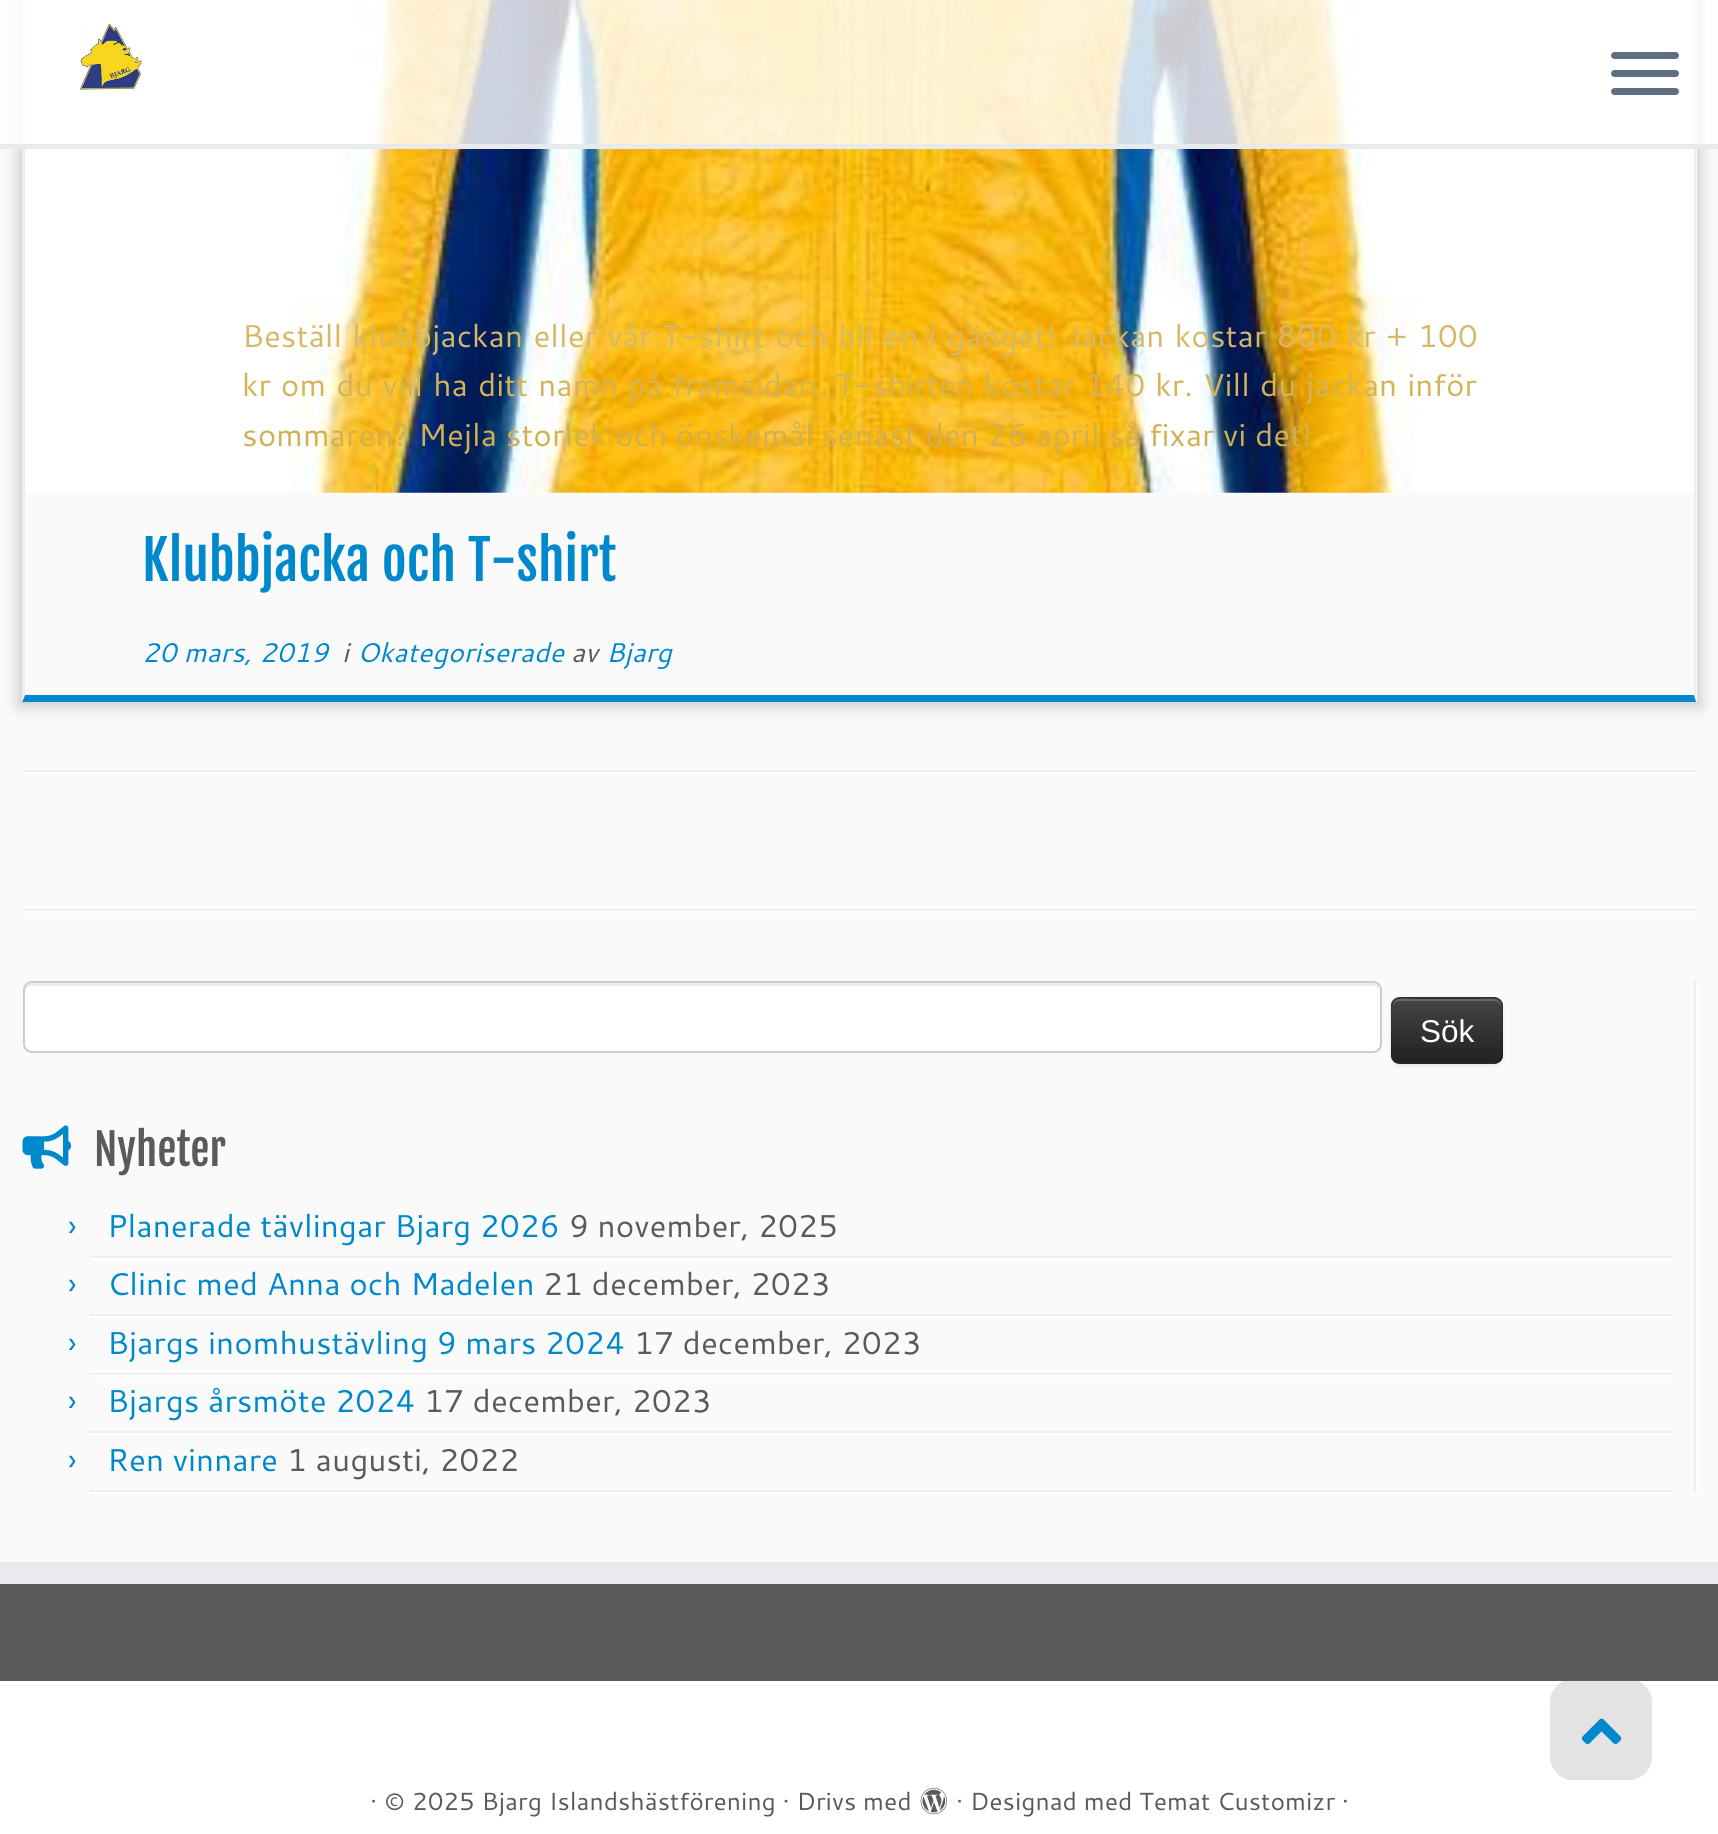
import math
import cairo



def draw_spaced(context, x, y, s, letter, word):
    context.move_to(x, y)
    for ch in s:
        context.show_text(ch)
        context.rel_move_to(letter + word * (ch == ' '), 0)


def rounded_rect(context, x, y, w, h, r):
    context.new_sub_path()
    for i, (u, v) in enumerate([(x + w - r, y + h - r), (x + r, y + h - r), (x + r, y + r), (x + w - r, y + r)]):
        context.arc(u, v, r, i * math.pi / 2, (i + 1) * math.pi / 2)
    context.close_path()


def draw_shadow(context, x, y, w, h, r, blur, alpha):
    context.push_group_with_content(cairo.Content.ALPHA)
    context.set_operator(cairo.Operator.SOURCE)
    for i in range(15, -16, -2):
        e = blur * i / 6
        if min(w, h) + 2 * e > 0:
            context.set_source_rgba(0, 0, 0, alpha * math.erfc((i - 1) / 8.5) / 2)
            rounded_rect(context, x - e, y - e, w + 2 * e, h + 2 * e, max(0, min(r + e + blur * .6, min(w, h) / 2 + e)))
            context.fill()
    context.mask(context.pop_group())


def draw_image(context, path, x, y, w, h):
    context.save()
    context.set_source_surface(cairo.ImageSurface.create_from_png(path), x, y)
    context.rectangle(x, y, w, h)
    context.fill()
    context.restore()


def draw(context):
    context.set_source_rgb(250 / 255, 250 / 255, 250 / 255)
    context.paint()
    context.save()
    context.set_fill_rule(cairo.FillRule.EVEN_ODD)
    context.new_path()
    context.move_to(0, 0)
    context.line_to(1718, 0)
    context.line_to(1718, 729)
    context.line_to(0, 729)
    context.close_path()
    context.move_to(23, -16)
    context.line_to(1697, -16)
    context.line_to(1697, 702)
    context.line_to(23, 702)
    context.close_path()
    context.clip()
    context.set_source_rgb(204 / 255, 204 / 255, 204 / 255)
    draw_shadow(context, 18, -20, 1683, 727, 0, 7, 1)
    context.restore()
    context.set_source_rgb(238 / 255, 238 / 255, 238 / 255)
    context.new_path()
    context.move_to(1696, -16)
    context.line_to(1696, 702)
    context.line_to(1694, 695)
    context.line_to(1694, -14)
    context.close_path()
    context.fill()
    context.set_source_rgb(0, 136 / 255, 204 / 255)
    context.new_path()
    context.move_to(1696, 702)
    context.line_to(22, 702)
    context.line_to(25, 695)
    context.line_to(1694, 695)
    context.close_path()
    context.fill()
    context.set_source_rgb(238 / 255, 238 / 255, 238 / 255)
    context.new_path()
    context.move_to(22, 702)
    context.line_to(22, -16)
    context.line_to(25, -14)
    context.line_to(25, 695)
    context.close_path()
    context.fill()
    draw_image(context, "images/2.png", 25, 0, 1669, 493)
    context.set_source_rgba(1, 1, 1, 0.8)
    context.rectangle(0, 0, 1718, 144)
    context.fill()
    context.set_source_rgb(233 / 255, 234 / 255, 238 / 255)
    context.rectangle(0, 144, 1718, 5)
    context.fill()
    draw_image(context, "images/1.png", 79, 23, 63, 67)
    context.set_source_rgb(95 / 255, 111 / 255, 129 / 255)
    rounded_rect(context, 1611, 52, 68, 7, 3.5)
    context.fill()
    rounded_rect(context, 1611, 70, 68, 7, 3.5)
    context.fill()
    rounded_rect(context, 1611, 88, 68, 7, 3.5)
    context.fill()
    context.set_source_rgb(238 / 255, 238 / 255, 238 / 255)
    context.rectangle(23, 770, 1674, 2)
    context.fill()
    context.set_source_rgb(1, 1, 1)
    context.rectangle(23, 772, 1674, 2)
    context.fill()
    context.set_source_rgb(238 / 255, 238 / 255, 238 / 255)
    context.rectangle(23, 909, 1674, 2)
    context.fill()
    context.set_source_rgb(1, 1, 1)
    context.rectangle(23, 911, 1674, 2)
    context.fill()
    context.set_source_rgb(238 / 255, 238 / 255, 238 / 255)
    context.rectangle(1694, 981, 2, 511)
    context.fill()
    context.set_source_rgb(1, 1, 1)
    rounded_rect(context, 23, 981, 1359, 72, 9)
    context.fill()
    context.set_source_rgb(236 / 255, 236 / 255, 236 / 255)
    context.new_path()
    context.move_to(32, 986)
    context.line_to(1372, 986)
    context.curve_to(1376, 986, 1379, 989, 1379, 992)
    context.line_to(1379, 990)
    context.curve_to(1379, 986, 1376, 983, 1372, 983)
    context.line_to(32, 983)
    context.curve_to(28, 983, 25, 986, 25, 990)
    context.line_to(25, 992)
    context.curve_to(25, 989, 28, 986, 32, 986)
    context.close_path()
    context.fill()
    rounded_rect(context, 24, 982, 1357, 70, 8)
    context.set_source_rgb(204 / 255, 204 / 255, 204 / 255)
    context.stroke()
    context.set_source_rgb(0, 0, 0)
    draw_shadow(context, 1391, 999, 112, 68, 9, 2, 0.05)
    context.set_source_rgb(54 / 255, 54 / 255, 54 / 255)
    rounded_rect(context, 1391, 997, 112, 67, 9)
    context.fill()
    context.save()
    rounded_rect(context, 1391, 997, 112, 67, 9)
    context.clip()
    gradient = cairo.LinearGradient(1447, 999, 1447, 1062)
    gradient.add_color_stop_rgba(0, 68 / 255, 68 / 255, 68 / 255, 1)
    gradient.add_color_stop_rgba(1, 34 / 255, 34 / 255, 34 / 255, 1)
    context.set_source(gradient)
    context.rectangle(1391, 999, 112, 63)
    context.fill()
    context.restore()
    context.set_source_rgba(1, 1, 1, 0.2)
    context.new_path()
    context.move_to(1400, 1001)
    context.line_to(1494, 1001)
    context.curve_to(1498, 1001, 1501, 1004, 1501, 1008)
    context.curve_to(1501, 995, 1488, 999, 1478, 999)
    context.line_to(1416, 999)
    context.curve_to(1406, 999, 1393, 995, 1393, 1008)
    context.curve_to(1393, 1004, 1396, 1001, 1400, 1001)
    context.close_path()
    context.fill()
    context.new_path()
    context.move_to(1499.5, 1061)
    context.curve_to(1498, 1062.5, 1496, 1063, 1494, 1063)
    context.line_to(1399.5, 1063)
    context.curve_to(1397.5, 1063, 1395.5, 1062.5, 1394, 1061)
    context.set_source_rgba(0, 0, 0, 0.25)
    context.set_line_width(2.2)
    context.stroke()
    context.new_path()
    context.move_to(1394, 1061)
    context.curve_to(1392.5, 1059.5, 1391.5, 1057.5, 1391.5, 1055)
    context.line_to(1391.5, 1006)
    context.curve_to(1391.5, 1003.5, 1392.5, 1001.5, 1394, 1000)
    context.curve_to(1395.5, 998.5, 1397.5, 998, 1399.5, 998)
    context.line_to(1494, 998)
    context.curve_to(1496, 998, 1498, 998.5, 1499.5, 1000)
    context.curve_to(1501, 1001.5, 1502, 1003.5, 1502, 1006)
    context.line_to(1502, 1055)
    context.curve_to(1502, 1057.5, 1501, 1059.5, 1499.5, 1061)
    context.set_source_rgba(0, 0, 0, 0.1)
    context.stroke()
    context.set_source_rgb(1, 1, 1)
    context.rectangle(1697, 981, 2, 511)
    context.fill()
    draw_image(context, "images/3.png", 22, 1125, 50, 44)
    context.set_source_rgb(238 / 255, 238 / 255, 238 / 255)
    context.rectangle(90, 1256, 1582, 2)
    context.fill()
    context.set_source_rgb(1, 1, 1)
    context.rectangle(90, 1258, 1582, 2)
    context.fill()
    context.set_source_rgb(238 / 255, 238 / 255, 238 / 255)
    context.rectangle(90, 1314, 1582, 2)
    context.fill()
    context.set_source_rgb(1, 1, 1)
    context.rectangle(90, 1316, 1582, 2)
    context.fill()
    context.set_source_rgb(238 / 255, 238 / 255, 238 / 255)
    context.rectangle(90, 1373, 1582, 2)
    context.fill()
    context.set_source_rgb(1, 1, 1)
    context.rectangle(90, 1375, 1582, 2)
    context.fill()
    context.set_source_rgb(238 / 255, 238 / 255, 238 / 255)
    context.rectangle(90, 1431, 1582, 2)
    context.fill()
    context.set_source_rgb(1, 1, 1)
    context.rectangle(90, 1433, 1582, 2)
    context.fill()
    context.set_source_rgb(238 / 255, 238 / 255, 238 / 255)
    context.rectangle(90, 1490, 1582, 2)
    context.fill()
    context.set_source_rgb(1, 1, 1)
    context.rectangle(90, 1492, 1582, 2)
    context.fill()
    context.set_source_rgb(90 / 255, 90 / 255, 90 / 255)
    context.rectangle(0, 1584, 1718, 97)
    context.fill()
    context.set_source_rgb(233 / 255, 234 / 255, 238 / 255)
    context.rectangle(0, 1562, 1718, 22)
    context.fill()
    context.set_source_rgb(1, 1, 1)
    context.rectangle(0, 1681, 1718, 153)
    context.fill()
    draw_image(context, "images/4.png", 920, 1787, 27, 28)
    context.set_source_rgba(119 / 255, 119 / 255, 119 / 255, 0.2)
    rounded_rect(context, 1550, 1679, 102, 101, 23)
    context.fill()
    draw_image(context, "images/5.png", 1581, 1718, 41, 26)
    context.select_font_face("Cantarell")
    context.set_font_size(31.5)
    context.set_source_rgb(213 / 255, 184 / 255, 104 / 255)
    draw_spaced(context, 242, 347, "Beställ klubbjackan eller vår T-shirt och bli en i gänget! Jackan kostar 800 kr + 100", 0, 1.7)
    context.set_source_rgb(213 / 255, 179 / 255, 89 / 255)
    draw_spaced(context, 242, 396, "kr om du vill ha ditt namn på framsidan. T-shirten kostar 140 kr. Vill du jackan inför", 0, 1.4)
    context.set_source_rgb(209 / 255, 175 / 255, 82 / 255)
    context.move_to(242, 446)
    context.show_text("sommaren? Mejla storlek och önskemål senast den 26 april så fixar vi det!")
    context.select_font_face("Fjalla One")
    context.set_font_size(54)
    context.set_source_rgb(0, 136 / 255, 204 / 255)
    context.move_to(142, 581)
    context.show_text("Klubbjacka och T-shirt")
    context.select_font_face("Cantarell", cairo.FontSlant.ITALIC)
    context.set_font_size(27)
    context.move_to(142, 662)
    context.show_text("20 mars, 2019")
    context.set_source_rgb(90 / 255, 90 / 255, 90 / 255)
    context.move_to(342, 662)
    context.show_text("i")
    context.set_source_rgb(0, 136 / 255, 204 / 255)
    context.move_to(357, 662)
    context.show_text("Okategoriserade")
    context.set_source_rgb(90 / 255, 90 / 255, 90 / 255)
    context.move_to(571, 662)
    context.show_text("av")
    context.set_source_rgb(0, 136 / 255, 204 / 255)
    context.move_to(606, 662)
    context.show_text("Bjarg")
    context.select_font_face("Liberation Sans")
    context.set_font_size(31.5)
    context.set_source_rgb(1, 1, 1)
    context.move_to(1420, 1042)
    context.show_text("Sök")
    context.select_font_face("Fjalla One")
    context.set_font_size(43)
    context.set_source_rgb(90 / 255, 90 / 255, 90 / 255)
    context.move_to(94, 1166)
    context.show_text("Nyheter")
    context.select_font_face("Cantarell")
    context.set_font_size(31.5)
    context.set_source_rgb(0, 136 / 255, 204 / 255)
    context.move_to(68, 1237)
    context.show_text("›")
    context.move_to(107, 1237)
    context.show_text("Planerade tävlingar Bjarg 2026")
    context.set_source_rgb(90 / 255, 90 / 255, 90 / 255)
    context.move_to(569, 1237)
    context.show_text("9 november, 2025")
    context.set_source_rgb(0, 136 / 255, 204 / 255)
    context.move_to(68, 1295)
    context.show_text("›")
    context.move_to(107, 1295)
    context.show_text("Clinic med Anna och Madelen")
    context.set_source_rgb(90 / 255, 90 / 255, 90 / 255)
    context.move_to(543, 1295)
    context.show_text("21 december, 2023")
    context.set_source_rgb(0, 136 / 255, 204 / 255)
    context.move_to(68, 1354)
    context.show_text("›")
    context.move_to(107, 1354)
    context.show_text("Bjargs inomhustävling 9 mars 2024")
    context.set_source_rgb(90 / 255, 90 / 255, 90 / 255)
    context.move_to(634, 1354)
    context.show_text("17 december, 2023")
    context.set_source_rgb(0, 136 / 255, 204 / 255)
    context.move_to(68, 1412)
    context.show_text("›")
    context.move_to(107, 1412)
    context.show_text("Bjargs årsmöte 2024")
    context.set_source_rgb(90 / 255, 90 / 255, 90 / 255)
    context.move_to(424, 1412)
    context.show_text("17 december, 2023")
    context.set_source_rgb(0, 136 / 255, 204 / 255)
    context.move_to(68, 1471)
    context.show_text("›")
    context.move_to(107, 1471)
    context.show_text("Ren vinnare")
    context.set_source_rgb(90 / 255, 90 / 255, 90 / 255)
    context.move_to(287, 1471)
    context.show_text("1 augusti, 2022")
    context.set_font_size(24.75)
    context.move_to(370, 1810)
    context.show_text("· © 2025 Bjarg Islandshästförening · Drivs med")
    context.move_to(956, 1810)
    context.show_text("· Designad med Temat Customizr ·")


surface = cairo.ImageSurface(cairo.Format.RGB24, 1718, 1834)
context = cairo.Context(surface)
options = cairo.FontOptions()
options.set_hint_metrics(cairo.HintMetrics.OFF)
options.set_hint_style(cairo.HintStyle.NONE)
context.set_font_options(options)
context.set_miter_limit(4)
draw(context)
surface.write_to_png("out.png")
